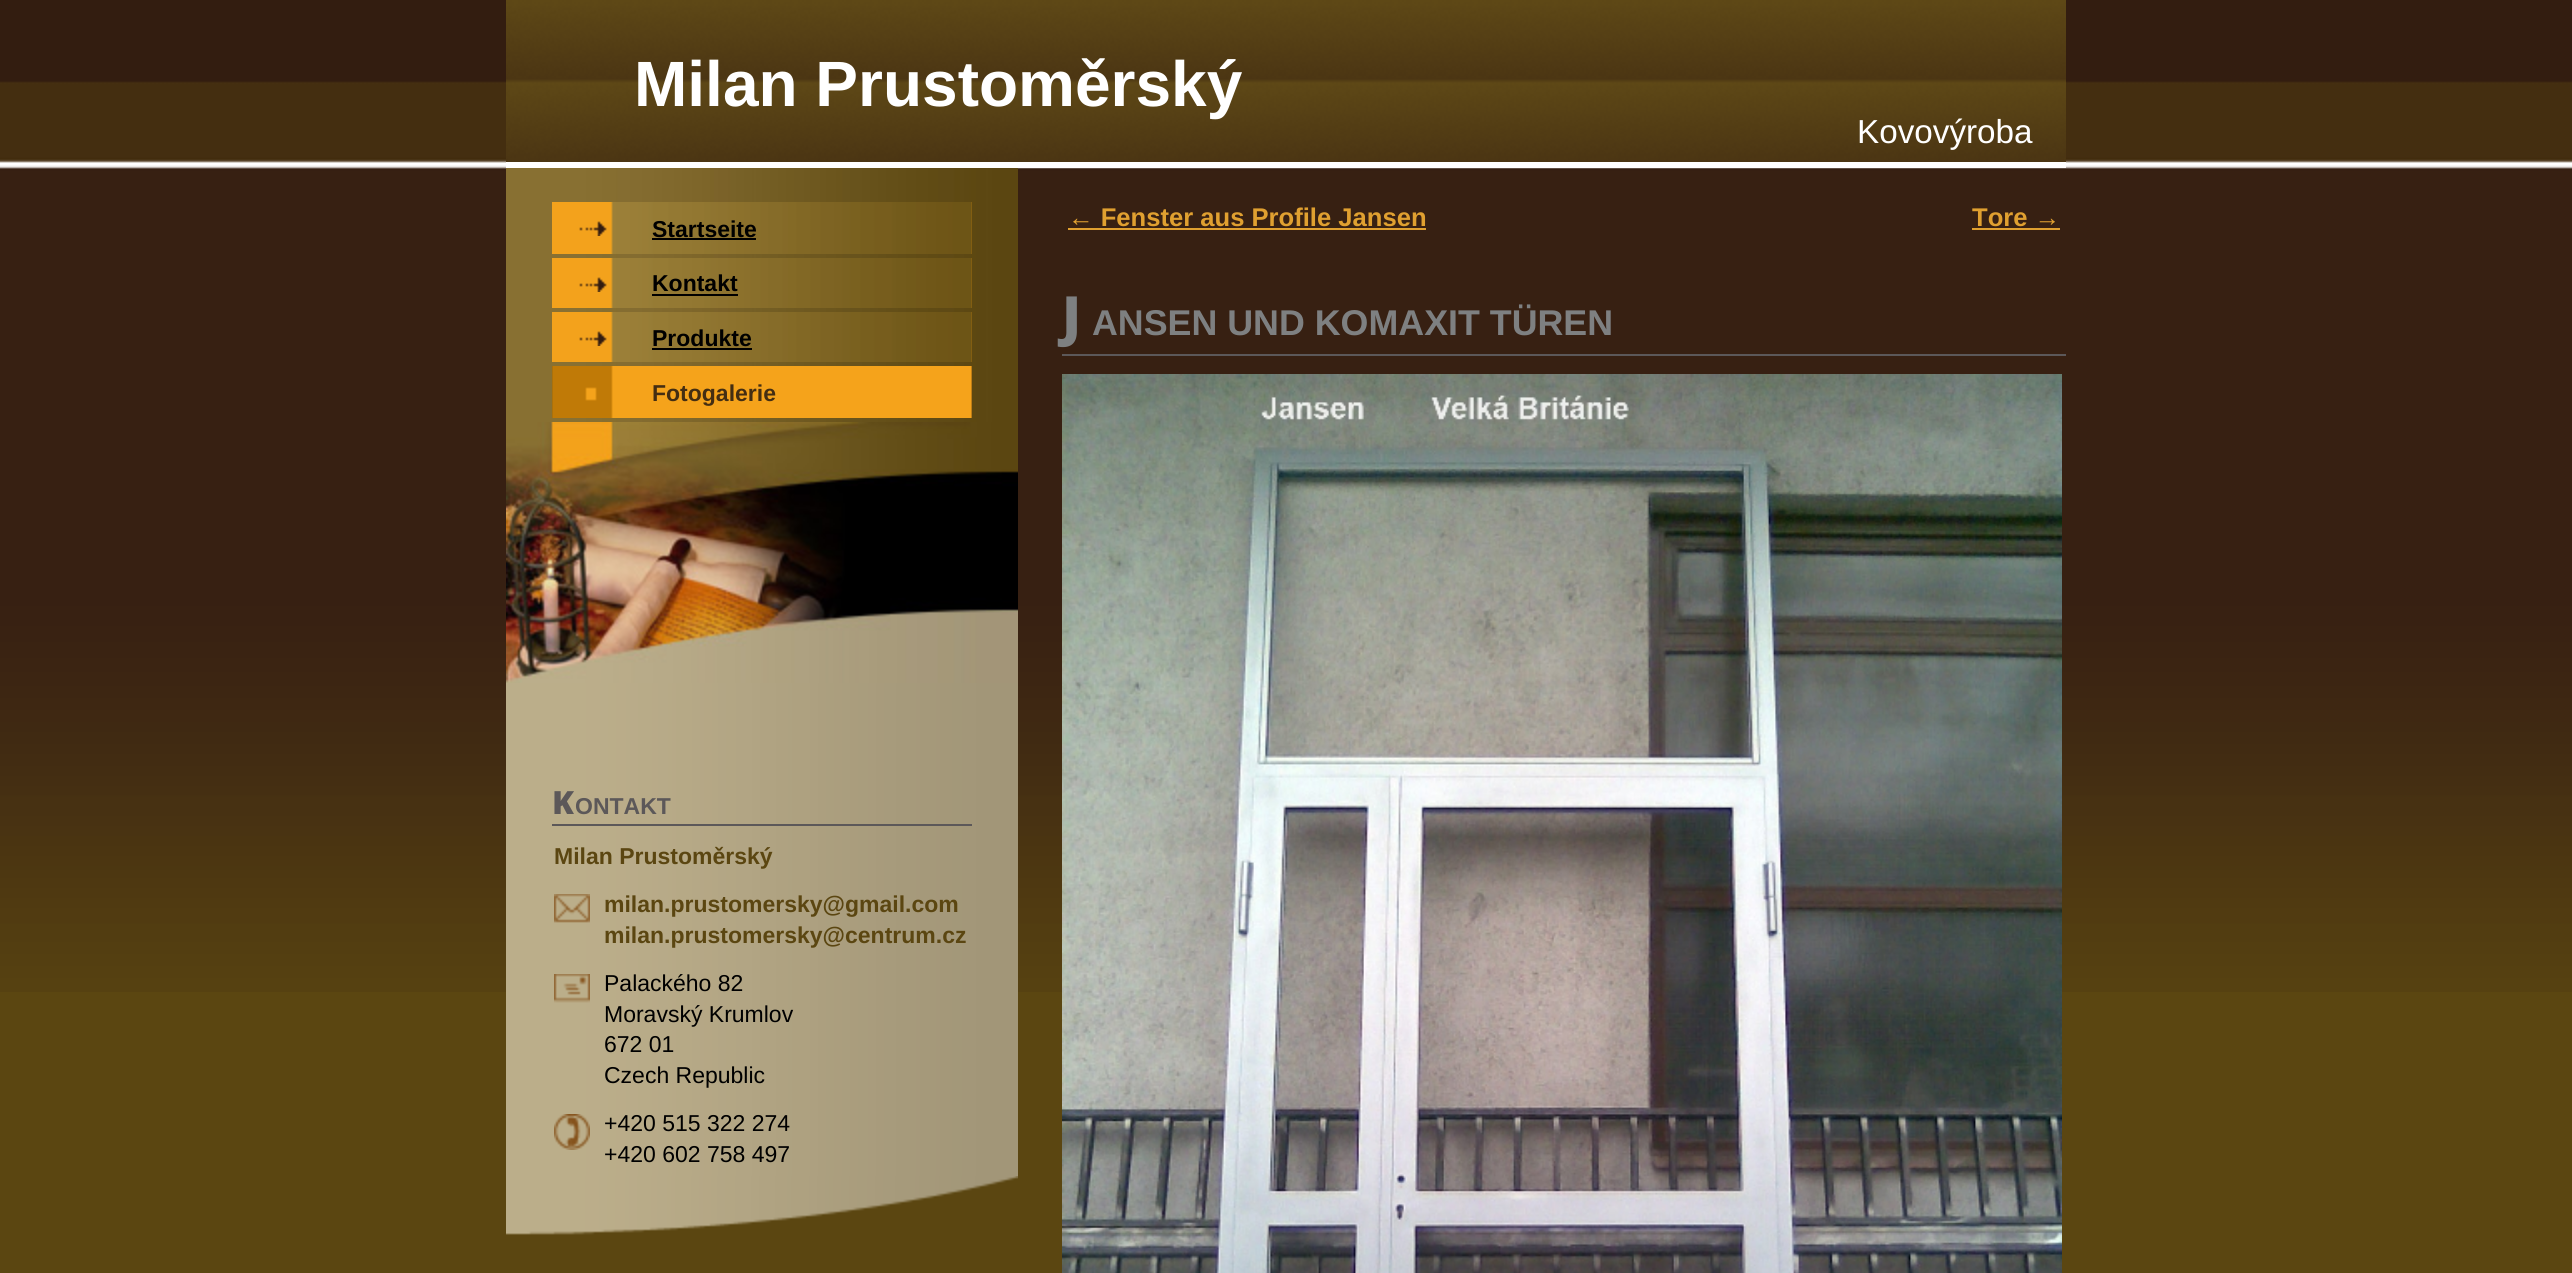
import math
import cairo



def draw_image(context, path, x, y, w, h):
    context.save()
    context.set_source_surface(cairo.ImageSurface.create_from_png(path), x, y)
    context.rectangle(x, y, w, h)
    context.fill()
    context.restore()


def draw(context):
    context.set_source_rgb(91 / 255, 70 / 255, 17 / 255)
    context.paint()
    draw_image(context, "images/1.png", 0, 0, 2572, 992)
    draw_image(context, "images/2.png", 506, 0, 1560, 162)
    context.set_source_rgb(1, 1, 1)
    context.rectangle(506, 162, 1560, 6)
    context.fill()
    draw_image(context, "images/3.png", 506, 683, 512, 493)
    draw_image(context, "images/4.png", 506, 168, 512, 254)
    draw_image(context, "images/5.png", 552, 202, 420, 52)
    draw_image(context, "images/6.png", 579, 221, 28, 15)
    context.set_source_rgb(0, 0, 0)
    context.rectangle(652, 238, 104, 2)
    context.fill()
    draw_image(context, "images/7.png", 552, 258, 420, 50)
    draw_image(context, "images/6.png", 579, 277, 28, 15)
    context.rectangle(652, 294, 86, 2)
    context.fill()
    draw_image(context, "images/7.png", 552, 312, 420, 50)
    draw_image(context, "images/6.png", 579, 331, 28, 15)
    context.rectangle(652, 348, 100, 2)
    context.fill()
    draw_image(context, "images/8.png", 552, 366, 420, 52)
    draw_image(context, "images/9.png", 585, 387, 12, 14)
    draw_image(context, "images/10.png", 506, 422, 512, 261)
    context.set_source_rgb(92 / 255, 88 / 255, 89 / 255)
    context.rectangle(552, 824, 420, 2)
    context.fill()
    draw_image(context, "images/11.png", 554, 894, 36, 29)
    draw_image(context, "images/12.png", 554, 974, 36, 29)
    draw_image(context, "images/13.png", 554, 1114, 36, 36)
    draw_image(context, "images/14.png", 506, 1176, 512, 68)
    context.set_source_rgb(224 / 255, 160 / 255, 48 / 255)
    context.rectangle(1068, 228, 358, 2)
    context.fill()
    context.rectangle(1972, 228, 88, 2)
    context.fill()
    context.set_source_rgb(92 / 255, 88 / 255, 89 / 255)
    context.rectangle(1062, 354, 1004, 2)
    context.fill()
    draw_image(context, "images/15.png", 1062, 374, 1000, 899)
    context.select_font_face("Liberation Sans", cairo.FontSlant.NORMAL, cairo.FontWeight.BOLD)
    context.set_font_size(64)
    context.set_source_rgb(1, 1, 1)
    context.move_to(634, 106)
    context.show_text("Milan Prustoměrský")
    context.select_font_face("Liberation Sans")
    context.set_font_size(33.25)
    context.move_to(1857, 143)
    context.show_text("Kovovýroba")
    context.select_font_face("Liberation Sans", cairo.FontSlant.NORMAL, cairo.FontWeight.BOLD)
    context.set_font_size(23)
    context.set_source_rgb(0, 0, 0)
    context.move_to(652, 237)
    context.show_text("Startseite")
    context.move_to(652, 291)
    context.show_text("Kontakt")
    context.move_to(652, 346)
    context.show_text("Produkte")
    context.set_source_rgb(68 / 255, 46 / 255, 18 / 255)
    context.move_to(652, 401)
    context.show_text("Fotogalerie")
    context.select_font_face("Noto Sans Black")
    context.set_font_size(32)
    context.set_source_rgb(92 / 255, 88 / 255, 89 / 255)
    context.move_to(552, 814)
    context.show_text("K")
    context.select_font_face("Liberation Sans", cairo.FontSlant.NORMAL, cairo.FontWeight.BOLD)
    context.set_font_size(23)
    context.move_to(575, 814)
    context.show_text("ONTAKT")
    context.set_source_rgb(91 / 255, 70 / 255, 17 / 255)
    context.move_to(554, 864)
    context.show_text("Milan Prustoměrský")
    context.move_to(604, 912)
    context.show_text("milan.prustomersky@gmail.com")
    context.move_to(604, 943)
    context.show_text("milan.prustomersky@centrum.cz")
    context.select_font_face("Liberation Sans")
    context.set_source_rgb(0, 0, 0)
    context.move_to(604, 991)
    context.show_text("Palackého 82")
    context.move_to(604, 1022)
    context.show_text("Moravský Krumlov")
    context.move_to(604, 1052)
    context.show_text("672 01")
    context.move_to(604, 1083)
    context.show_text("Czech Republic")
    context.move_to(604, 1131)
    context.show_text("+420 515 322 274")
    context.move_to(604, 1162)
    context.show_text("+420 602 758 497")
    context.select_font_face("Liberation Sans", cairo.FontSlant.NORMAL, cairo.FontWeight.BOLD)
    context.set_font_size(25.6)
    context.set_source_rgb(224 / 255, 160 / 255, 48 / 255)
    context.move_to(1068, 226)
    context.show_text("← Fenster aus Profile Jansen")
    context.move_to(1972, 226)
    context.show_text("Tore →")
    context.select_font_face("Noto Sans Black")
    context.set_font_size(54)
    context.set_source_rgb(126 / 255, 128 / 255, 129 / 255)
    context.move_to(1062, 335)
    context.show_text("J")
    context.select_font_face("Liberation Sans", cairo.FontSlant.NORMAL, cairo.FontWeight.BOLD)
    context.set_font_size(35.8)
    context.move_to(1092, 335)
    context.show_text("ANSEN UND KOMAXIT TÜREN")


surface = cairo.ImageSurface(cairo.Format.RGB24, 2572, 1273)
context = cairo.Context(surface)
options = cairo.FontOptions()
options.set_hint_metrics(cairo.HintMetrics.OFF)
options.set_hint_style(cairo.HintStyle.NONE)
context.set_font_options(options)
context.set_miter_limit(4)
draw(context)
surface.write_to_png("out.png")
